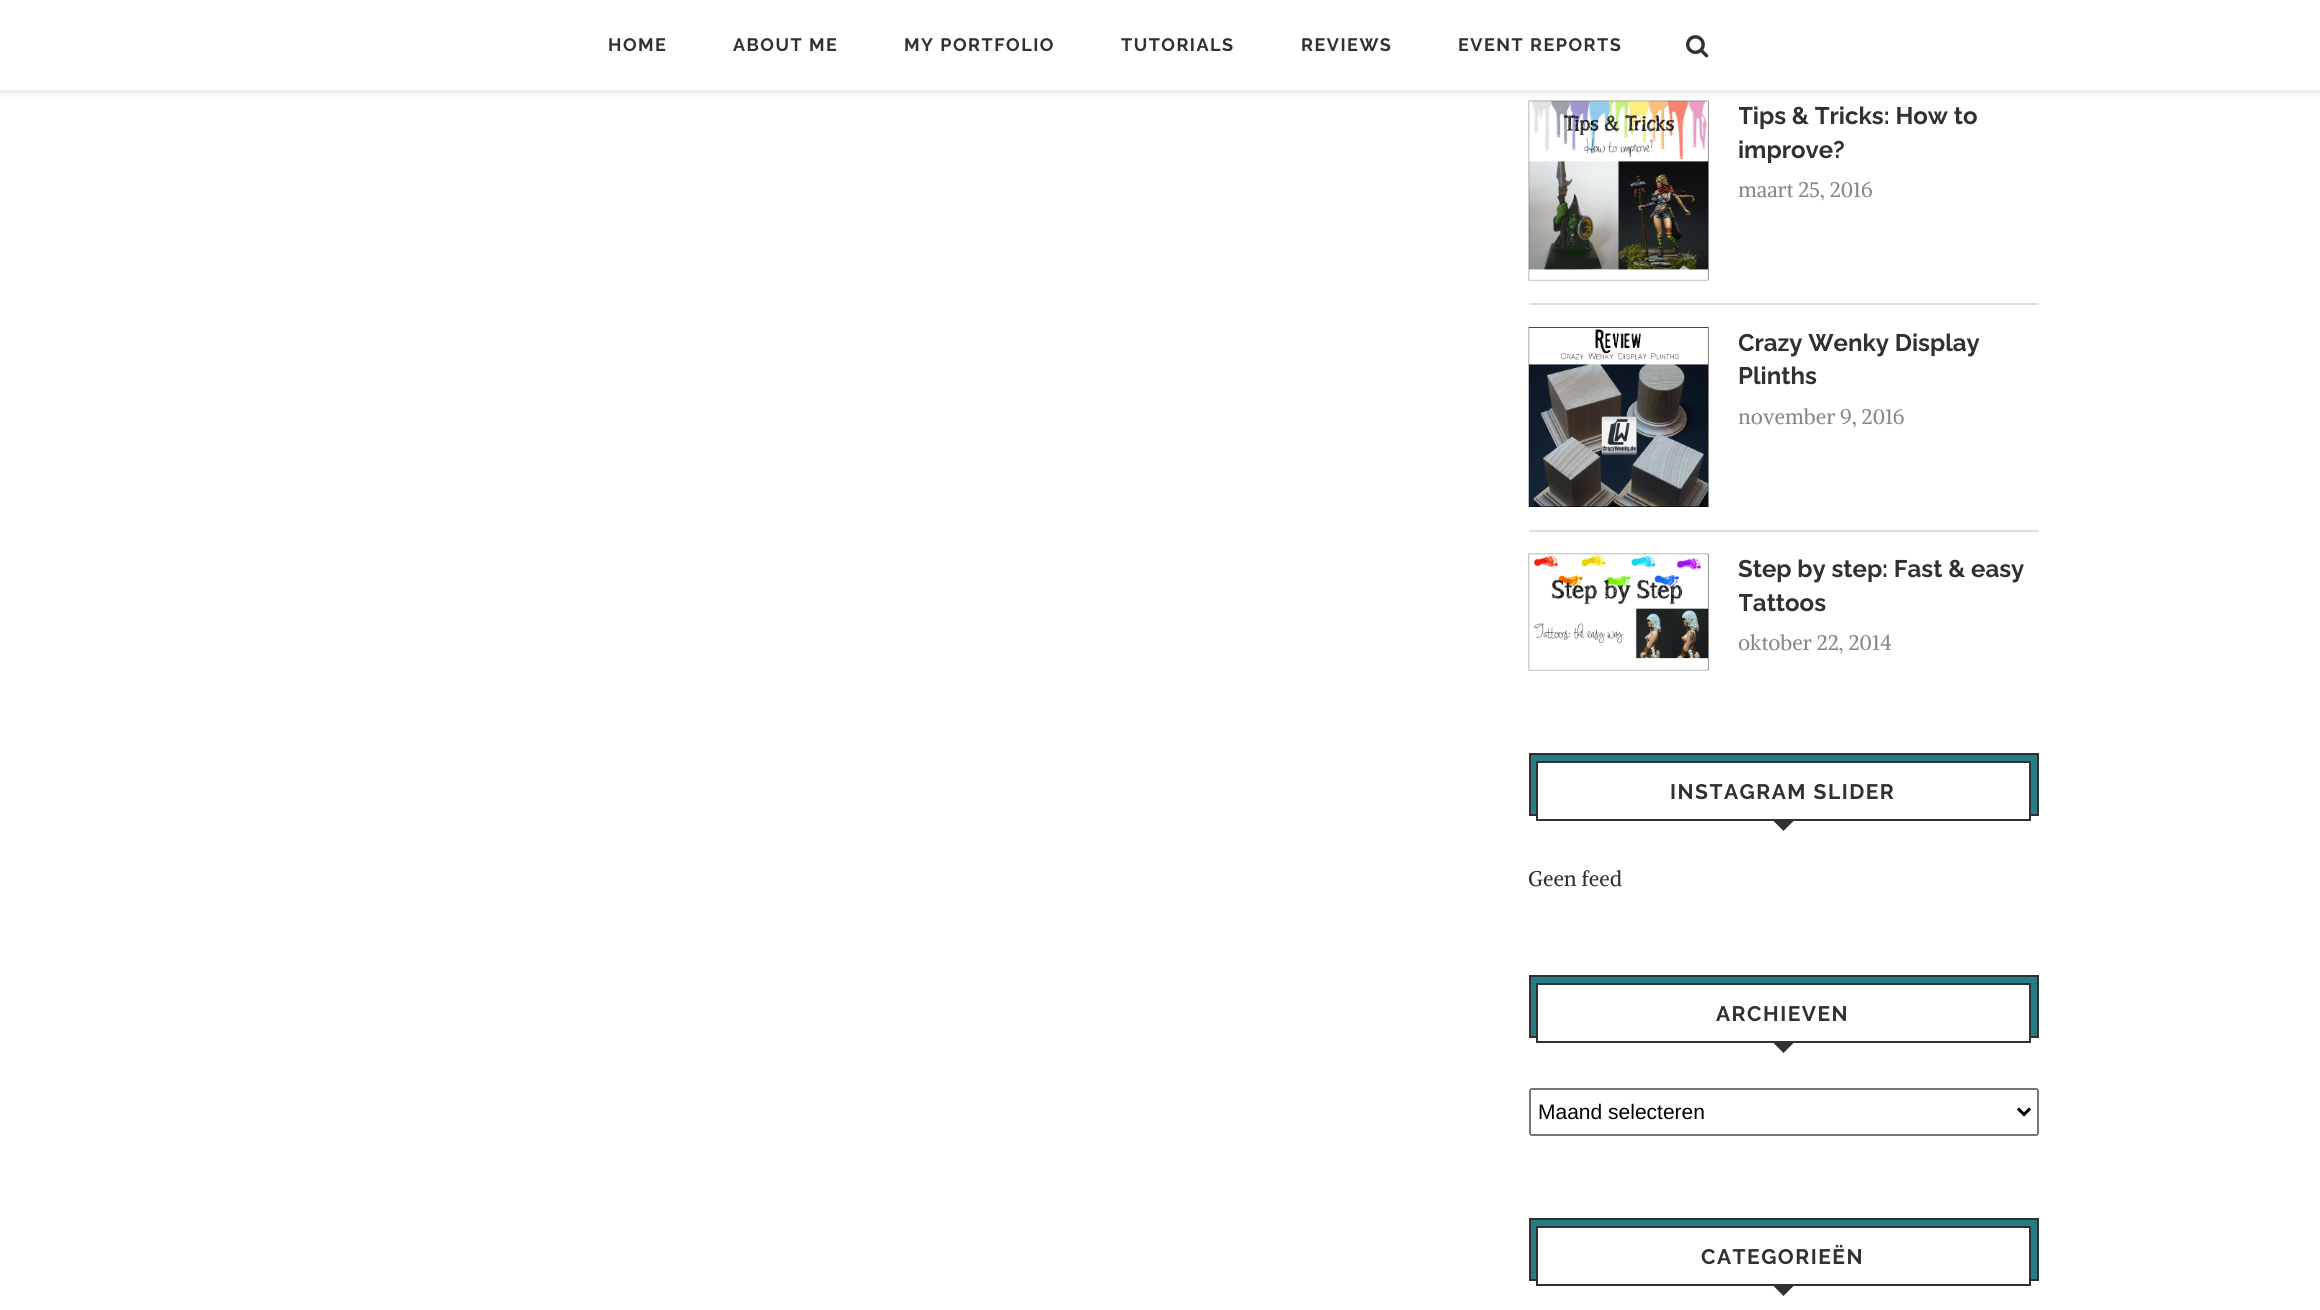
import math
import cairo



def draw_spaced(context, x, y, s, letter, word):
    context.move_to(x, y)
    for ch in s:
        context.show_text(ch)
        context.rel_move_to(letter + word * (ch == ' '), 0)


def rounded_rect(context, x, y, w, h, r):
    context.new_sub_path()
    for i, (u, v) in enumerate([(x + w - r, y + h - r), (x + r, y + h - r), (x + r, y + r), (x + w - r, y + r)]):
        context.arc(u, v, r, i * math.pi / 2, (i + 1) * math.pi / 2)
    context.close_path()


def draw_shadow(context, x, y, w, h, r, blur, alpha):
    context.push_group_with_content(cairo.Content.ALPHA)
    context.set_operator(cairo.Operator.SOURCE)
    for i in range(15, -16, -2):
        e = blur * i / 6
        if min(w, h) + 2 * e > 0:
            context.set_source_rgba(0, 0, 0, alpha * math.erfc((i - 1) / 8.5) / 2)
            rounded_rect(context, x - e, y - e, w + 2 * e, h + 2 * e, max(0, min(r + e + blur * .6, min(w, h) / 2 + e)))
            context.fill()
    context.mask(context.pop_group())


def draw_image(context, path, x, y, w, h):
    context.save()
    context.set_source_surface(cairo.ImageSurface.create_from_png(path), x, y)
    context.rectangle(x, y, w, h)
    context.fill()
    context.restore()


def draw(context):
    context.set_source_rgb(1, 1, 1)
    context.paint()
    draw_image(context, "images/2.png", 1528, 100, 181, 181)
    context.set_source_rgb(190 / 255, 190 / 255, 190 / 255)
    draw_shadow(context, 0, 2, 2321, 90, 0, 4, 0.46)
    context.set_source_rgb(1, 1, 1)
    context.rectangle(0, 0, 2320, 90)
    context.fill()
    draw_image(context, "images/1.png", 1686, 35, 23, 23)
    context.set_source_rgb(222 / 255, 222 / 255, 222 / 255)
    context.rectangle(1529, 303, 510, 2)
    context.fill()
    context.rectangle(1529, 530, 510, 2)
    context.fill()
    draw_image(context, "images/3.png", 1528, 327, 181, 180)
    draw_image(context, "images/4.png", 1528, 553, 181, 118)
    context.set_source_rgb(38 / 255, 125 / 255, 133 / 255)
    context.rectangle(1530, 754, 508, 61)
    context.fill_preserve()
    context.set_source_rgb(49 / 255, 49 / 255, 49 / 255)
    context.stroke()
    context.set_source_rgb(1, 1, 1)
    context.rectangle(1538, 763, 491, 53)
    context.fill()
    context.rectangle(1537, 762, 493, 58)
    context.set_source_rgb(49 / 255, 49 / 255, 49 / 255)
    context.stroke()
    context.new_path()
    context.move_to(1773, 820.5)
    context.line_to(1794, 820.5)
    context.line_to(1783.5, 831)
    context.close_path()
    context.fill()
    context.set_source_rgb(38 / 255, 125 / 255, 133 / 255)
    context.rectangle(1530, 976, 508, 61)
    context.fill_preserve()
    context.set_source_rgb(49 / 255, 49 / 255, 49 / 255)
    context.stroke()
    context.set_source_rgb(1, 1, 1)
    context.rectangle(1538, 985, 491, 53)
    context.fill()
    context.rectangle(1537, 984, 493, 58)
    context.set_source_rgb(49 / 255, 49 / 255, 49 / 255)
    context.stroke()
    context.new_path()
    context.move_to(1773, 1042.5)
    context.line_to(1794, 1042.5)
    context.line_to(1783.5, 1053)
    context.close_path()
    context.fill()
    rounded_rect(context, 1530, 1089, 508, 46, 2)
    context.set_source_rgb(118 / 255, 118 / 255, 118 / 255)
    context.stroke()
    context.new_path()
    context.move_to(2018, 1108.5)
    context.line_to(2024, 1114.5)
    context.line_to(2030, 1108.5)
    context.set_source_rgb(0, 0, 0)
    context.set_line_width(3)
    context.stroke()
    context.set_source_rgb(38 / 255, 125 / 255, 133 / 255)
    context.rectangle(1530, 1219, 508, 61)
    context.fill_preserve()
    context.set_source_rgb(49 / 255, 49 / 255, 49 / 255)
    context.set_line_width(2)
    context.stroke()
    context.set_source_rgb(1, 1, 1)
    context.rectangle(1538, 1228, 491, 53)
    context.fill()
    context.rectangle(1537, 1227, 493, 58)
    context.set_source_rgb(49 / 255, 49 / 255, 49 / 255)
    context.stroke()
    context.new_path()
    context.move_to(1773, 1285.5)
    context.line_to(1794, 1285.5)
    context.line_to(1783.5, 1296)
    context.close_path()
    context.fill()
    context.select_font_face("Raleway", cairo.FontSlant.NORMAL, cairo.FontWeight.BOLD)
    context.set_font_size(18)
    draw_spaced(context, 608, 51, "HOME", 1.5, 0)
    draw_spaced(context, 733, 51, "ABOUT ME", 1.5, 0)
    draw_spaced(context, 904, 51, "MY PORTFOLIO", 1.5, 0)
    draw_spaced(context, 1121, 51, "TUTORIALS", 1.5, 0)
    draw_spaced(context, 1301, 51, "REVIEWS", 1.5, 0)
    draw_spaced(context, 1458, 51, "EVENT REPORTS", 1.5, 0)
    context.save()
    context.rectangle(1739, 101, 300, 103)
    context.clip()
    context.set_font_size(24)
    context.move_to(1738, 124)
    context.show_text("Tips & Tricks: How to")
    context.restore()
    context.set_font_size(24)
    context.move_to(1738, 158)
    context.show_text("improve?")
    context.save()
    context.rectangle(1739, 101, 300, 103)
    context.clip()
    context.select_font_face("Alike")
    context.set_font_size(21)
    context.set_source_rgb(136 / 255, 136 / 255, 136 / 255)
    context.move_to(1738, 197)
    context.show_text("maart 25, 2016")
    context.restore()
    context.save()
    context.rectangle(1739, 327, 300, 104)
    context.clip()
    context.move_to(1738, 351)
    context.show_text("Crazy Wenky Display")
    context.restore()
    context.move_to(1738, 384)
    context.show_text("Plinths")
    context.save()
    context.rectangle(1739, 327, 300, 104)
    context.clip()
    context.select_font_face("Alike")
    context.set_font_size(21)
    context.set_source_rgb(136 / 255, 136 / 255, 136 / 255)
    context.move_to(1738, 424)
    context.show_text("november 9, 2016")
    context.restore()
    context.move_to(1738, 577)
    context.show_text("Step by step: Fast & easy")
    context.save()
    context.rectangle(1739, 554, 300, 103)
    context.clip()
    context.move_to(1738, 611)
    context.show_text("Tattoos")
    context.select_font_face("Alike")
    context.set_font_size(21)
    context.set_source_rgb(136 / 255, 136 / 255, 136 / 255)
    context.move_to(1738, 650)
    context.show_text("oktober 22, 2014")
    context.restore()
    context.set_font_size(21)
    draw_spaced(context, 1670, 799, "INSTAGRAM SLIDER", 1.5, 0)
    context.select_font_face("Alike")
    context.move_to(1528, 886)
    context.show_text("Geen feed")
    context.select_font_face("Raleway", cairo.FontSlant.NORMAL, cairo.FontWeight.BOLD)
    draw_spaced(context, 1716, 1021, "ARCHIEVEN", 1.5, 0)
    context.select_font_face("Liberation Sans")
    context.set_source_rgb(0, 0, 0)
    context.move_to(1538, 1119)
    context.show_text("Maand selecteren")
    context.select_font_face("Raleway", cairo.FontSlant.NORMAL, cairo.FontWeight.BOLD)
    context.set_source_rgb(49 / 255, 49 / 255, 49 / 255)
    draw_spaced(context, 1701, 1264, "CATEGORIEËN", 1.5, 0)


surface = cairo.ImageSurface(cairo.Format.RGB24, 2320, 1310)
context = cairo.Context(surface)
options = cairo.FontOptions()
options.set_hint_metrics(cairo.HintMetrics.OFF)
options.set_hint_style(cairo.HintStyle.NONE)
context.set_font_options(options)
context.set_miter_limit(4)
draw(context)
surface.write_to_png("out.png")
